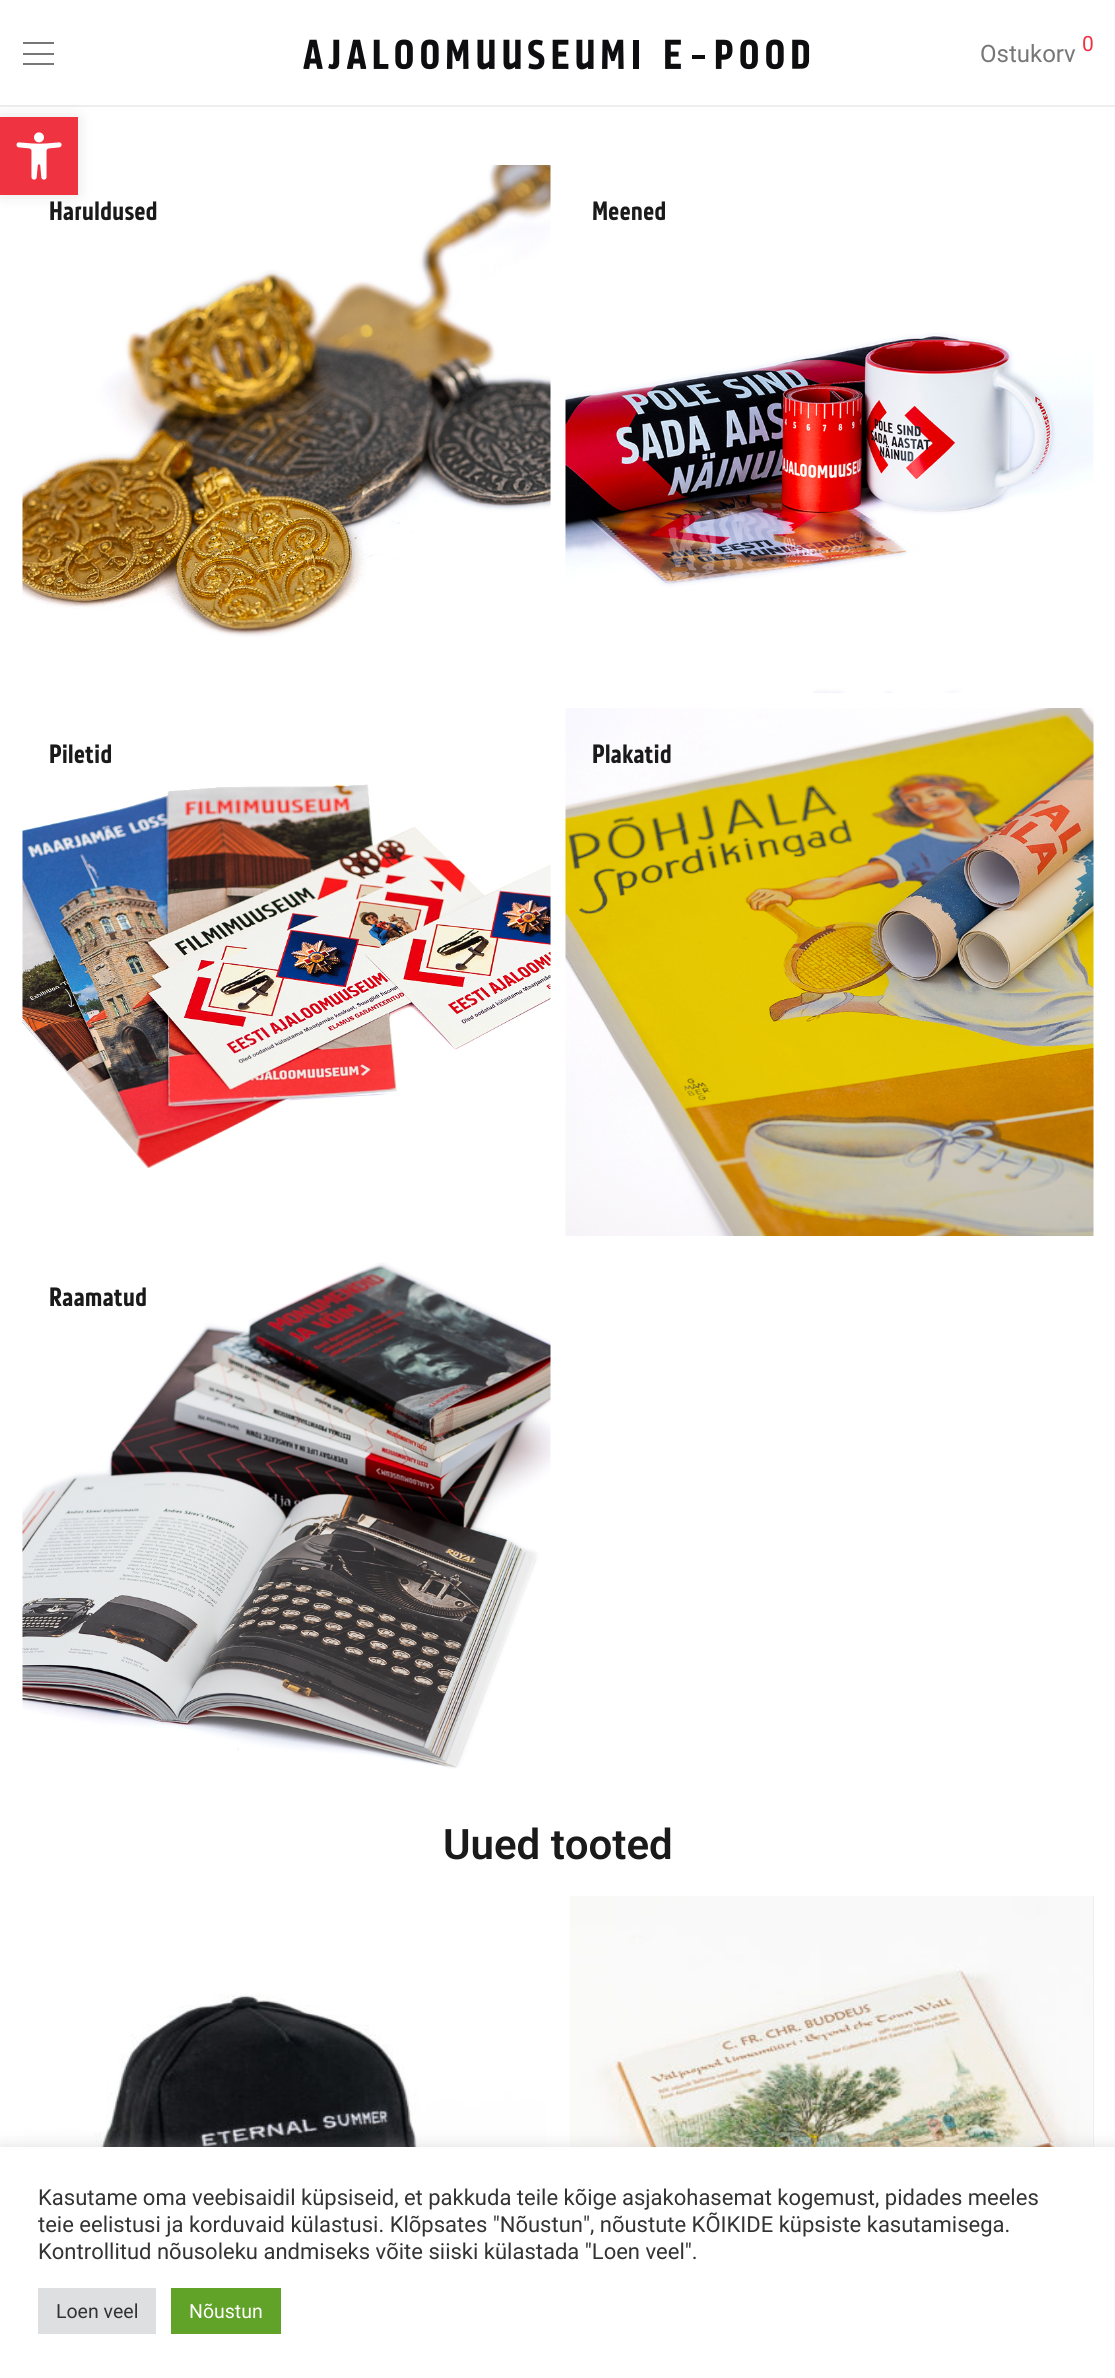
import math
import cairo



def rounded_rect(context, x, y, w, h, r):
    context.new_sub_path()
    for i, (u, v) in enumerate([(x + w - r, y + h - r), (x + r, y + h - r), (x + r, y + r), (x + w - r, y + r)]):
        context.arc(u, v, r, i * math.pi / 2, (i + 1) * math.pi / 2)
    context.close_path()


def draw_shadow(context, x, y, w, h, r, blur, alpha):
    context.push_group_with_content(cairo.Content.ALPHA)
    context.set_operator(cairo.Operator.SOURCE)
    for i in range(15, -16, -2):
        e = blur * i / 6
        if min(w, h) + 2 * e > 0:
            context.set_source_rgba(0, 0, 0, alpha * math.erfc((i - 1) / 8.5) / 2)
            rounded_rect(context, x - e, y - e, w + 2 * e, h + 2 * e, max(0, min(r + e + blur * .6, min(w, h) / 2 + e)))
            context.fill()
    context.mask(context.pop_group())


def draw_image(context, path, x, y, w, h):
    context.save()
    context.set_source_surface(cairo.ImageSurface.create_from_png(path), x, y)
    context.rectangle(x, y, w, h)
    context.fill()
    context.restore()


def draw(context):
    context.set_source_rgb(1, 1, 1)
    context.paint()
    context.set_source_rgb(238 / 255, 238 / 255, 238 / 255)
    context.rectangle(0, 105, 1115, 2)
    context.fill()
    context.set_source_rgb(119 / 255, 119 / 255, 119 / 255)
    context.rectangle(23, 42, 31, 2)
    context.fill()
    context.rectangle(23, 53, 31, 2)
    context.fill()
    context.rectangle(23, 63, 31, 2)
    context.fill()
    draw_image(context, "images/1.png", 303, 39, 507, 31)
    draw_image(context, "images/2.png", 22, 165, 529, 472)
    draw_image(context, "images/3.png", 565, 276, 529, 417)
    draw_image(context, "images/4.png", 22, 784, 529, 384)
    draw_image(context, "images/5.png", 565, 708, 529, 528)
    draw_image(context, "images/6.png", 22, 1262, 529, 507)
    draw_image(context, "images/7.png", 23, 1896, 523, 251)
    context.set_source_rgb(238 / 255, 238 / 255, 238 / 255)
    context.rectangle(1093, 1896, 1, 251)
    context.fill()
    draw_image(context, "images/8.png", 570, 1896, 523, 251)
    context.set_source_rgb(172 / 255, 171 / 255, 171 / 255)
    draw_shadow(context, 0, 2145, 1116, 233, 0, 7.5, 0.3)
    context.set_source_rgb(1, 1, 1)
    context.rectangle(0, 2147, 1115, 231)
    context.fill()
    context.set_source_rgb(222 / 255, 223 / 255, 224 / 255)
    context.rectangle(38, 2288, 118, 46)
    context.fill()
    context.set_source_rgb(97 / 255, 162 / 255, 41 / 255)
    context.rectangle(171, 2288, 110, 46)
    context.fill()
    context.set_source_rgb(0, 0, 0)
    draw_shadow(context, 0, 117, 78, 78, 0, 7.5, 0.1)
    context.set_source_rgb(239 / 255, 51 / 255, 64 / 255)
    context.rectangle(0, 117, 78, 78)
    context.fill()
    draw_image(context, "images/9.png", 16, 132, 46, 48)
    context.select_font_face("Roboto")
    context.set_font_size(24)
    context.set_source_rgb(119 / 255, 119 / 255, 119 / 255)
    context.move_to(980, 62)
    context.show_text("Ostukorv")
    context.set_font_size(21)
    context.set_source_rgb(239 / 255, 51 / 255, 64 / 255)
    context.move_to(1082, 51)
    context.show_text("0")
    context.select_font_face("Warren")
    context.set_font_size(30)
    context.set_source_rgb(26 / 255, 26 / 255, 26 / 255)
    context.move_to(49, 220)
    context.show_text("Haruldused")
    context.move_to(592, 220)
    context.show_text("Meened")
    context.move_to(49, 763)
    context.show_text("Piletid")
    context.move_to(592, 763)
    context.show_text("Plakatid")
    context.move_to(49, 1306)
    context.show_text("Raamatud")
    context.select_font_face("Roboto SemiBold")
    context.set_font_size(42)
    context.move_to(443, 1859)
    context.show_text("Uued tooted")
    context.select_font_face("Roboto")
    context.set_font_size(22)
    context.set_source_rgb(51 / 255, 51 / 255, 51 / 255)
    context.move_to(38, 2205)
    context.show_text("Kasutame oma veebisaidil küpsiseid, et pakkuda teile kõige asjakohasemat kogemust, pidades meeles")
    context.move_to(38, 2232)
    context.show_text("teie eelistusi ja korduvaid külastusi. Klõpsates \"Nõustun\", nõustute KÕIKIDE küpsiste kasutamisega.")
    context.move_to(38, 2259)
    context.show_text("Kontrollitud nõusoleku andmiseks võite siiski külastada \"Loen veel\".")
    context.set_font_size(19.5)
    context.move_to(56, 2318)
    context.show_text("Loen veel")
    context.set_source_rgb(1, 1, 1)
    context.move_to(189, 2318)
    context.show_text("Nõustun")


surface = cairo.ImageSurface(cairo.Format.RGB24, 1115, 2378)
context = cairo.Context(surface)
options = cairo.FontOptions()
options.set_hint_metrics(cairo.HintMetrics.OFF)
options.set_hint_style(cairo.HintStyle.NONE)
context.set_font_options(options)
context.set_miter_limit(4)
draw(context)
surface.write_to_png("out.png")
